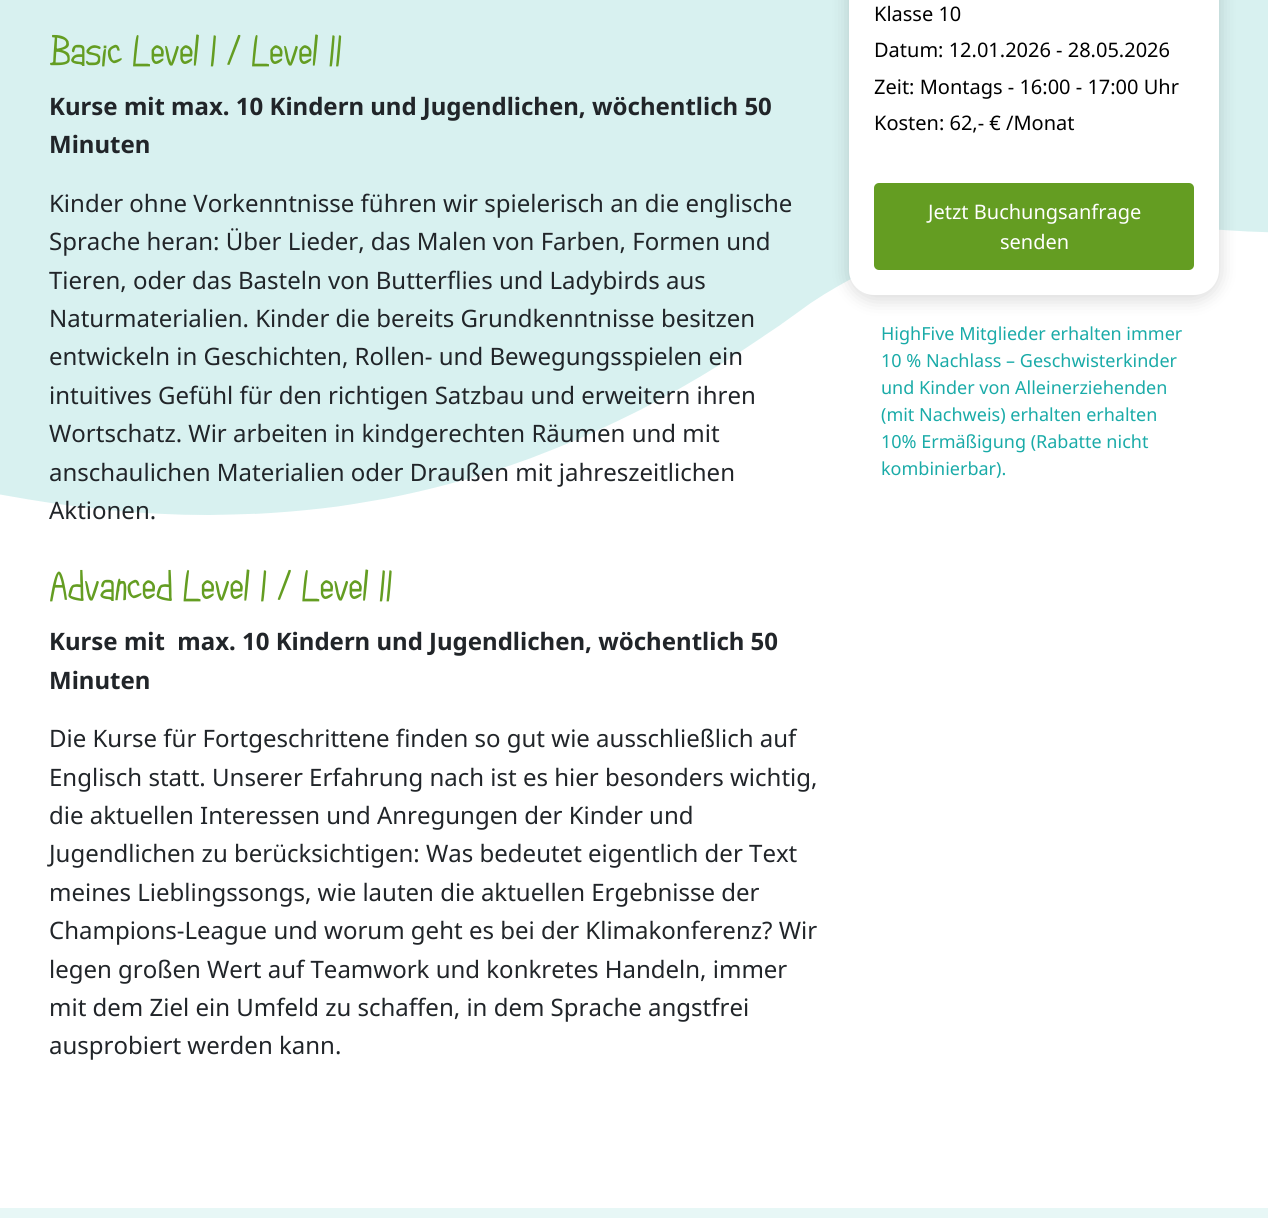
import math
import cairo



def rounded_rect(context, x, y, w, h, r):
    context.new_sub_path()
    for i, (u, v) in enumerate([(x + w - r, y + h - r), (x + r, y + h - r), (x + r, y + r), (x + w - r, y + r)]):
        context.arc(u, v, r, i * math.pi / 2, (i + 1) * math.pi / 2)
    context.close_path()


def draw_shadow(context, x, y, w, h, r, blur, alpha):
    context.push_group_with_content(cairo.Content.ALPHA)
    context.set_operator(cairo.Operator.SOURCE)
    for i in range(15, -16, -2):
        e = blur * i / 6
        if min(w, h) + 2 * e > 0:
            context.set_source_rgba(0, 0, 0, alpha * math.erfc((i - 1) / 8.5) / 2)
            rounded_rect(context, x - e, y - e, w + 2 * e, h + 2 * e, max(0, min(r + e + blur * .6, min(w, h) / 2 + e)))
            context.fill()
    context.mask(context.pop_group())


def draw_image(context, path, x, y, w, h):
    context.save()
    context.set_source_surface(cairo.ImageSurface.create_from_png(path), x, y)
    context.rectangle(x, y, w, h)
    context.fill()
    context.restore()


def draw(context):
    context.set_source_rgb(1, 1, 1)
    context.paint()
    draw_image(context, "images/1.png", 0, 0, 1268, 515)
    context.set_source_rgb(0, 0, 0)
    draw_shadow(context, 849, -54, 370, 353, 25, 9.5, 0.16)
    context.set_source_rgb(1, 1, 1)
    rounded_rect(context, 849, -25, 370, 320, 25)
    context.fill()
    context.set_source_rgb(100 / 255, 157 / 255, 34 / 255)
    rounded_rect(context, 874, 183, 320, 87, 5)
    context.fill()
    context.set_source_rgb(231 / 255, 247 / 255, 246 / 255)
    context.rectangle(0, 1208, 1268, 10)
    context.fill()
    context.select_font_face("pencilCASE", cairo.FontSlant.NORMAL, cairo.FontWeight.BOLD)
    context.set_font_size(38)
    context.set_source_rgb(100 / 255, 157 / 255, 34 / 255)
    context.move_to(49, 66)
    context.show_text("Basic Level I / Level II")
    context.select_font_face("Noto Sans", cairo.FontSlant.NORMAL, cairo.FontWeight.BOLD)
    context.set_font_size(24)
    context.set_source_rgb(33 / 255, 37 / 255, 41 / 255)
    context.move_to(49, 115)
    context.show_text("Kurse mit max. 10 Kindern und Jugendlichen, wöchentlich 50")
    context.move_to(49, 153)
    context.show_text("Minuten")
    context.select_font_face("Noto Sans")
    context.move_to(49, 212)
    context.show_text("Kinder ohne Vorkenntnisse führen wir spielerisch an die englische")
    context.move_to(49, 250)
    context.show_text("Sprache heran: Über Lieder, das Malen von Farben, Formen und")
    context.move_to(49, 289)
    context.show_text("Tieren, oder das Basteln von Butterflies und Ladybirds aus")
    context.move_to(49, 327)
    context.show_text("Naturmaterialien. Kinder die bereits Grundkenntnisse besitzen")
    context.move_to(49, 365)
    context.show_text("entwickeln in Geschichten, Rollen- und Bewegungsspielen ein")
    context.move_to(49, 404)
    context.show_text("intuitives Gefühl für den richtigen Satzbau und erweitern ihren")
    context.move_to(49, 442)
    context.show_text("Wortschatz. Wir arbeiten in kindgerechten Räumen und mit")
    context.move_to(49, 481)
    context.show_text("anschaulichen Materialien oder Draußen mit jahreszeitlichen")
    context.move_to(49, 519)
    context.show_text("Aktionen.")
    context.select_font_face("pencilCASE", cairo.FontSlant.NORMAL, cairo.FontWeight.BOLD)
    context.set_font_size(38)
    context.set_source_rgb(100 / 255, 157 / 255, 34 / 255)
    context.move_to(49, 601)
    context.show_text("Advanced Level I / Level II")
    context.select_font_face("Noto Sans", cairo.FontSlant.NORMAL, cairo.FontWeight.BOLD)
    context.set_font_size(24)
    context.set_source_rgb(33 / 255, 37 / 255, 41 / 255)
    context.move_to(49, 650)
    context.show_text("Kurse mit  max. 10 Kindern und Jugendlichen, wöchentlich 50")
    context.move_to(49, 689)
    context.show_text("Minuten")
    context.select_font_face("Noto Sans")
    context.move_to(49, 747)
    context.show_text("Die Kurse für Fortgeschrittene finden so gut wie ausschließlich auf")
    context.move_to(49, 786)
    context.show_text("Englisch statt. Unserer Erfahrung nach ist es hier besonders wichtig,")
    context.move_to(49, 824)
    context.show_text("die aktuellen Interessen und Anregungen der Kinder und")
    context.move_to(49, 862)
    context.show_text("Jugendlichen zu berücksichtigen: Was bedeutet eigentlich der Text")
    context.move_to(49, 901)
    context.show_text("meines Lieblingssongs, wie lauten die aktuellen Ergebnisse der")
    context.move_to(49, 939)
    context.show_text("Champions-League und worum geht es bei der Klimakonferenz? Wir")
    context.move_to(49, 978)
    context.show_text("legen großen Wert auf Teamwork und konkretes Handeln, immer")
    context.move_to(49, 1016)
    context.show_text("mit dem Ziel ein Umfeld zu schaffen, in dem Sprache angstfrei")
    context.move_to(49, 1054)
    context.show_text("ausprobiert werden kann.")
    context.set_font_size(20)
    context.set_source_rgb(0, 0, 0)
    context.move_to(874, 21)
    context.show_text("Klasse 10")
    context.move_to(874, 57)
    context.show_text("Datum: 12.01.2026 - 28.05.2026")
    context.move_to(874, 94)
    context.show_text("Zeit: Montags - 16:00 - 17:00 Uhr")
    context.move_to(874, 130)
    context.show_text("Kosten: 62,- € /Monat")
    context.set_source_rgb(1, 1, 1)
    context.move_to(928, 219)
    context.show_text("Jetzt Buchungsanfrage")
    context.move_to(1000, 249)
    context.show_text("senden")
    context.set_font_size(18)
    context.set_source_rgb(26 / 255, 171 / 255, 168 / 255)
    context.move_to(881, 340)
    context.show_text("HighFive Mitglieder erhalten immer")
    context.move_to(881, 367)
    context.show_text("10 % Nachlass – Geschwisterkinder")
    context.move_to(881, 394)
    context.show_text("und Kinder von Alleinerziehenden")
    context.move_to(881, 421)
    context.show_text("(mit Nachweis) erhalten erhalten")
    context.move_to(881, 448)
    context.show_text("10% Ermäßigung (Rabatte nicht")
    context.move_to(881, 475)
    context.show_text("kombinierbar).")


surface = cairo.ImageSurface(cairo.Format.RGB24, 1268, 1218)
context = cairo.Context(surface)
options = cairo.FontOptions()
options.set_hint_metrics(cairo.HintMetrics.OFF)
options.set_hint_style(cairo.HintStyle.NONE)
context.set_font_options(options)
context.set_miter_limit(4)
draw(context)
surface.write_to_png("out.png")
